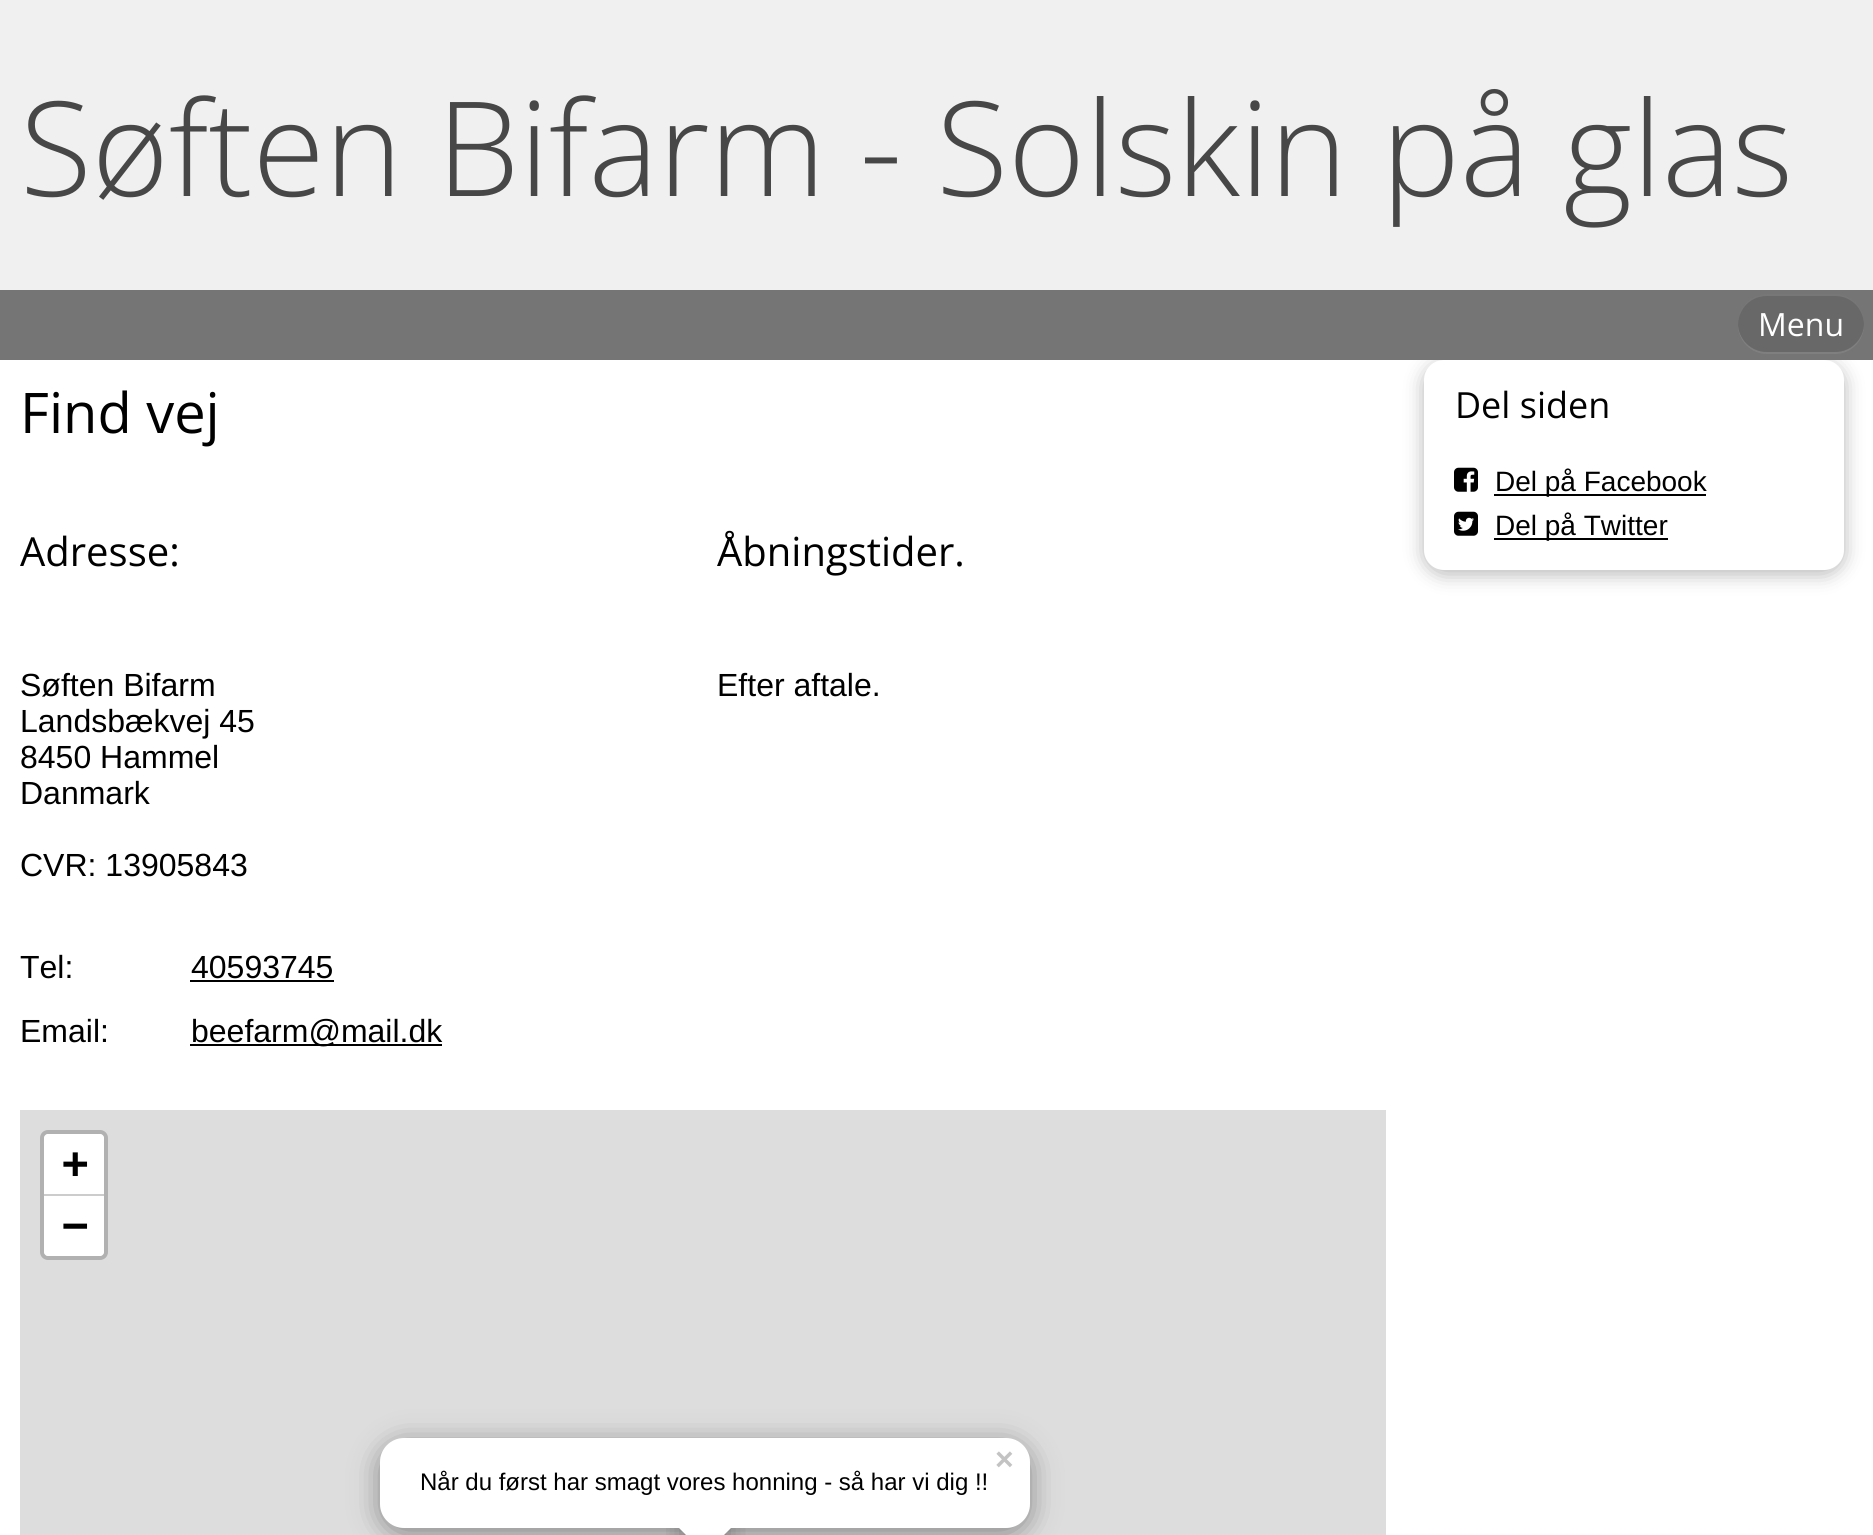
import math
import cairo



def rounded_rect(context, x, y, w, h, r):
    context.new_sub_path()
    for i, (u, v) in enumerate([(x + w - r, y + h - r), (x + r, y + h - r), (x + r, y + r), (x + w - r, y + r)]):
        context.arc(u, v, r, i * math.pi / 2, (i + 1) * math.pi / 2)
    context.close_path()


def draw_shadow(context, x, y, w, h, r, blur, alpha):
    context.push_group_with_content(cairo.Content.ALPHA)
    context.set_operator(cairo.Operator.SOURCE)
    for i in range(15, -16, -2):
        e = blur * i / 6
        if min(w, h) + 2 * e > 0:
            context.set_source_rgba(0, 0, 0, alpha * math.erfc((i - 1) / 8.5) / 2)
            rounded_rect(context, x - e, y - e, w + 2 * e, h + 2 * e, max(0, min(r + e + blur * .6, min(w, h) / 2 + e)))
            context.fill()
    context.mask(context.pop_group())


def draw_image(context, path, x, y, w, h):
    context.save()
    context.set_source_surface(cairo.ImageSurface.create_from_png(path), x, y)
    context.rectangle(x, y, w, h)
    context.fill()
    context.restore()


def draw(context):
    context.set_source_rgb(1, 1, 1)
    context.paint()
    context.set_source_rgb(240 / 255, 240 / 255, 240 / 255)
    context.rectangle(0, 0, 1873, 290)
    context.fill()
    context.set_source_rgb(0, 0, 0)
    draw_shadow(context, 1424, 364, 420, 210, 20, 10, 0.29)
    context.set_source_rgb(117 / 255, 117 / 255, 117 / 255)
    context.rectangle(0, 290, 1873, 70)
    context.fill()
    context.set_source_rgb(127 / 255, 127 / 255, 127 / 255)
    context.new_path()
    context.move_to(1738, 324)
    context.line_to(1738, 325)
    context.curve_to(1738, 341, 1751, 354, 1767, 354)
    context.line_to(1835, 354)
    context.curve_to(1851, 354, 1864, 341, 1864, 325)
    context.line_to(1864, 324)
    context.curve_to(1863, 340, 1851, 352, 1835, 352)
    context.line_to(1767, 352)
    context.curve_to(1751, 352, 1739, 340, 1738, 324)
    context.close_path()
    context.fill()
    context.set_source_rgb(104 / 255, 104 / 255, 104 / 255)
    rounded_rect(context, 1738, 294, 126, 58, 29)
    context.fill()
    context.set_source_rgba(1, 1, 1, 0.1)
    context.new_path()
    context.move_to(1767, 296)
    context.line_to(1835, 296)
    context.curve_to(1851, 296, 1863, 308, 1864, 324)
    context.line_to(1864, 323)
    context.curve_to(1864, 307, 1851, 294, 1835, 294)
    context.line_to(1767, 294)
    context.curve_to(1751, 294, 1738, 307, 1738, 323)
    context.line_to(1738, 324)
    context.curve_to(1739, 308, 1751, 296, 1767, 296)
    context.close_path()
    context.fill()
    context.set_source_rgb(0, 0, 0)
    context.rectangle(190, 980, 144, 2)
    context.fill()
    context.rectangle(190, 1044, 252, 2)
    context.fill()
    context.set_source_rgb(221 / 255, 221 / 255, 221 / 255)
    context.rectangle(20, 1110, 1366, 425)
    context.fill()
    rounded_rect(context, 42, 1132, 64, 126, 6)
    context.set_source_rgb(177 / 255, 177 / 255, 177 / 255)
    context.set_line_width(4)
    context.stroke()
    context.set_source_rgb(1, 1, 1)
    context.new_path()
    context.move_to(48, 1134)
    context.line_to(100, 1134)
    context.curve_to(102, 1134, 104, 1136, 104, 1138)
    context.line_to(104, 1196)
    context.line_to(44, 1196)
    context.line_to(44, 1138)
    context.curve_to(44, 1136, 46, 1134, 48, 1134)
    context.close_path()
    context.fill()
    context.set_source_rgb(204 / 255, 204 / 255, 204 / 255)
    context.rectangle(44, 1194, 60, 2)
    context.fill()
    context.set_source_rgb(1, 1, 1)
    context.new_path()
    context.move_to(44, 1196)
    context.line_to(104, 1196)
    context.line_to(104, 1252)
    context.curve_to(104, 1254, 102, 1256, 100, 1256)
    context.line_to(48, 1256)
    context.curve_to(46, 1256, 44, 1254, 44, 1252)
    context.close_path()
    context.fill()
    context.set_source_rgb(0, 0, 0)
    draw_shadow(context, 380, 1444, 650, 90, 24, 14, 0.4)
    context.set_source_rgb(1, 1, 1)
    rounded_rect(context, 380, 1438, 650, 90, 24)
    context.fill()
    context.save()
    context.rectangle(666, 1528, 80, 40)
    context.clip()
    context.set_source_rgb(0, 0, 0)
    draw_shadow(context, 686, 1514, 38, 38, 0, 14, 0.4)
    context.restore()
    context.save()
    context.rectangle(666, 1528, 80, 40)
    context.clip()
    context.new_path()
    context.move_to(705, 1500)
    context.line_to(732, 1527)
    context.line_to(705, 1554)
    context.line_to(678, 1527)
    context.close_path()
    context.fill()
    context.restore()
    rounded_rect(context, 1424, 360, 420, 210, 20)
    context.fill()
    draw_image(context, "images/1.png", 1454, 467, 24, 25)
    context.set_source_rgb(0, 0, 0)
    context.rectangle(1494, 494, 212, 2)
    context.fill()
    draw_image(context, "images/2.png", 1454, 511, 24, 25)
    context.rectangle(1494, 538, 174, 2)
    context.fill()
    context.select_font_face("Open Sans Light")
    context.set_font_size(131.6)
    context.set_source_rgb(71 / 255, 71 / 255, 71 / 255)
    context.move_to(20, 196)
    context.show_text("Søften Bifarm - Solskin på glas")
    context.select_font_face("Open Sans")
    context.set_font_size(32)
    context.set_source_rgb(1, 1, 1)
    context.move_to(1758, 336)
    context.show_text("Menu")
    context.set_font_size(56)
    context.set_source_rgb(0, 0, 0)
    context.move_to(20, 433)
    context.show_text("Find vej")
    context.set_font_size(40)
    context.move_to(20, 566)
    context.show_text("Adresse:")
    context.select_font_face("Liberation Sans")
    context.set_font_size(32)
    context.move_to(20, 696)
    context.show_text("Søften Bifarm")
    context.move_to(20, 732)
    context.show_text("Landsbækvej 45")
    context.move_to(20, 768)
    context.show_text("8450 Hammel")
    context.move_to(20, 804)
    context.show_text("Danmark")
    context.move_to(20, 876)
    context.show_text("CVR: 13905843")
    context.move_to(20, 978)
    context.show_text("Tel:")
    context.move_to(191, 978)
    context.show_text("40593745")
    context.move_to(20, 1042)
    context.show_text("Email:")
    context.move_to(191, 1042)
    context.show_text("beefarm@mail.dk")
    context.select_font_face("Open Sans")
    context.set_font_size(40)
    context.move_to(717, 566)
    context.show_text("Åbningstider.")
    context.select_font_face("Liberation Sans")
    context.set_font_size(32)
    context.move_to(717, 696)
    context.show_text("Efter aftale.")
    context.select_font_face("DejaVu Sans Mono", cairo.FontSlant.NORMAL, cairo.FontWeight.BOLD)
    context.set_font_size(44)
    context.move_to(62, 1178)
    context.show_text("+")
    context.move_to(62, 1240)
    context.show_text("−")
    context.select_font_face("Liberation Sans", cairo.FontSlant.NORMAL, cairo.FontWeight.BOLD)
    context.set_font_size(32)
    context.set_source_rgb(195 / 255, 195 / 255, 195 / 255)
    context.move_to(995, 1470)
    context.show_text("×")
    context.select_font_face("Liberation Sans")
    context.set_font_size(24)
    context.set_source_rgb(0, 0, 0)
    context.move_to(420, 1490)
    context.show_text("Når du først har smagt vores honning - så har vi dig !!")
    context.select_font_face("Open Sans")
    context.set_font_size(36)
    context.move_to(1455, 418)
    context.show_text("Del siden")
    context.select_font_face("Liberation Sans")
    context.set_font_size(28)
    context.move_to(1495, 491)
    context.show_text("Del på Facebook")
    context.move_to(1495, 535)
    context.show_text("Del på Twitter")


surface = cairo.ImageSurface(cairo.Format.RGB24, 1873, 1535)
context = cairo.Context(surface)
options = cairo.FontOptions()
options.set_hint_metrics(cairo.HintMetrics.OFF)
options.set_hint_style(cairo.HintStyle.NONE)
context.set_font_options(options)
context.set_miter_limit(4)
draw(context)
surface.write_to_png("out.png")
